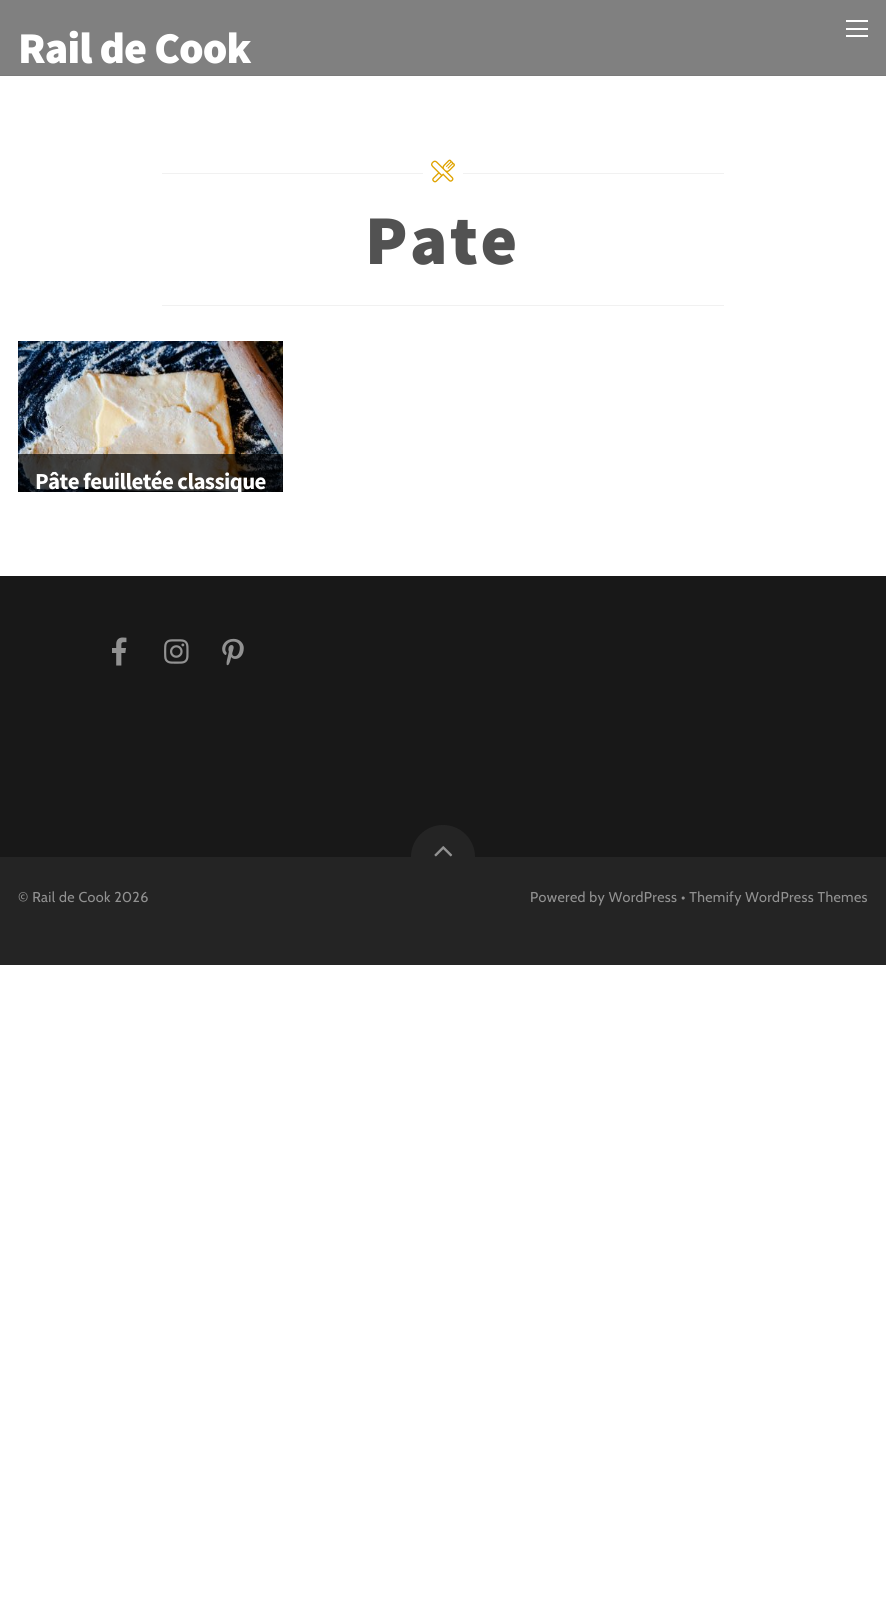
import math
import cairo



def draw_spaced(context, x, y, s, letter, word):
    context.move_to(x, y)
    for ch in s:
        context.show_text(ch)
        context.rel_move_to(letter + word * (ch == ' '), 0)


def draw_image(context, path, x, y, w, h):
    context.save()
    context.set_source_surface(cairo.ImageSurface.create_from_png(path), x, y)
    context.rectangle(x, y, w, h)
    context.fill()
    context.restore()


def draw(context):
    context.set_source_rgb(1, 1, 1)
    context.paint()
    context.set_source_rgb(128 / 255, 128 / 255, 128 / 255)
    context.rectangle(0, 0, 886, 75)
    context.fill()
    context.set_source_rgb(122 / 255, 122 / 255, 122 / 255)
    context.rectangle(0, 75, 886, 1)
    context.fill()
    context.set_source_rgb(1, 1, 1)
    context.rectangle(846, 35, 22, 2)
    context.fill()
    context.rectangle(846, 20, 22, 2)
    context.fill()
    context.rectangle(846, 28, 22, 2)
    context.fill()
    context.set_source_rgb(241 / 255, 241 / 255, 241 / 255)
    context.rectangle(162, 173, 261, 1)
    context.fill()
    draw_image(context, "images/1.png", 431, 159, 24, 24)
    context.rectangle(463, 173, 261, 1)
    context.fill()
    context.rectangle(162, 305, 562, 1)
    context.fill()
    draw_image(context, "images/2.png", 18, 341, 265, 151)
    context.set_source_rgba(0, 0, 0, 0.7)
    context.rectangle(18, 454, 265, 38)
    context.fill()
    context.set_source_rgb(24 / 255, 24 / 255, 24 / 255)
    context.rectangle(0, 576, 886, 281)
    context.fill()
    draw_image(context, "images/3.png", 112, 637, 15, 29)
    draw_image(context, "images/4.png", 164, 639, 25, 25)
    draw_image(context, "images/5.png", 222, 638, 22, 28)
    context.set_source_rgb(36 / 255, 36 / 255, 36 / 255)
    context.rectangle(0, 857, 886, 108)
    context.fill()
    context.arc(443, 857, 32, 0, 2 * math.pi)
    context.fill()
    draw_image(context, "images/6.png", 434, 846, 19, 11)
    context.select_font_face("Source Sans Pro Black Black")
    context.set_font_size(44)
    context.set_source_rgb(1, 1, 1)
    draw_spaced(context, 18, 63, "Rail de Cook", -0.9, 0)
    context.set_font_size(70)
    context.set_source_rgb(82 / 255, 82 / 255, 82 / 255)
    draw_spaced(context, 365, 264, "Pate", 2.5, 0)
    context.save()
    context.rectangle(18, 454, 265, 38)
    context.clip()
    context.select_font_face("Source Sans Pro", cairo.FontSlant.NORMAL, cairo.FontWeight.BOLD)
    context.set_font_size(22.9)
    context.set_source_rgb(1, 1, 1)
    draw_spaced(context, 35, 489, "Pâte feuilletée classique", -0.6, 0)
    context.restore()
    context.select_font_face("Cabin")
    context.set_font_size(14.25)
    context.set_source_rgb(146 / 255, 146 / 255, 146 / 255)
    draw_spaced(context, 18, 902, "© Rail de Cook 2026", 0.35, 0)
    draw_spaced(context, 530, 902, "Powered by WordPress • Themify WordPress Themes", 0.35, 0)


surface = cairo.ImageSurface(cairo.Format.RGB24, 886, 1608)
context = cairo.Context(surface)
options = cairo.FontOptions()
options.set_hint_metrics(cairo.HintMetrics.OFF)
options.set_hint_style(cairo.HintStyle.NONE)
context.set_font_options(options)
context.set_miter_limit(4)
draw(context)
surface.write_to_png("out.png")
